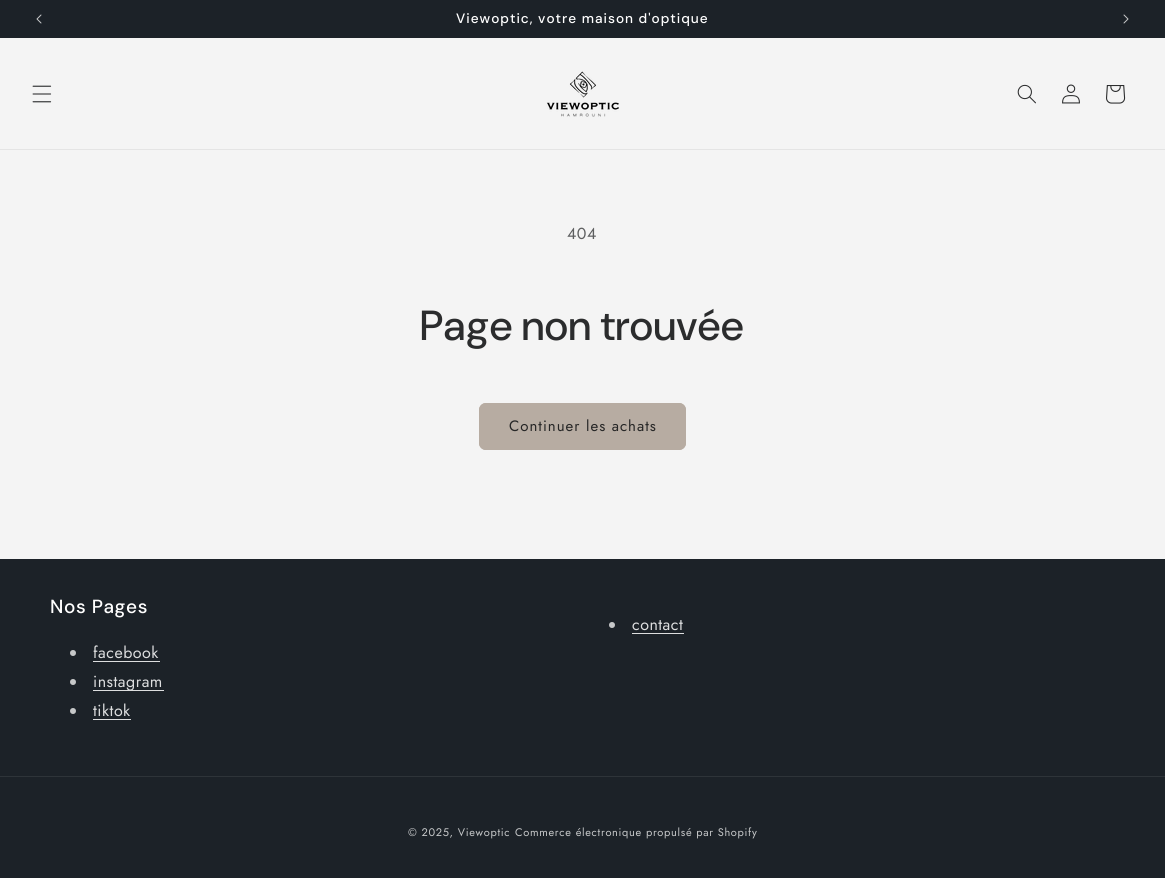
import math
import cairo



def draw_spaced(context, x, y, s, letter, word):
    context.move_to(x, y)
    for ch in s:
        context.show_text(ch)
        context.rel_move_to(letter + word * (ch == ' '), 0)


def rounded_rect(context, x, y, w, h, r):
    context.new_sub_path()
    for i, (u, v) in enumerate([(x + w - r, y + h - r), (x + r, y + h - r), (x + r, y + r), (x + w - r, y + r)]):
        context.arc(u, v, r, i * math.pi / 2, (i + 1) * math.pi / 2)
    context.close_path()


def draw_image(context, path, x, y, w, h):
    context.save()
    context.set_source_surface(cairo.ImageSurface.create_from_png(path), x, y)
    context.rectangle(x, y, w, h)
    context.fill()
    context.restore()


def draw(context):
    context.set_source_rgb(244 / 255, 244 / 255, 244 / 255)
    context.paint()
    context.set_source_rgb(28 / 255, 34 / 255, 40 / 255)
    context.rectangle(0, 0, 1165, 38)
    context.fill()
    draw_image(context, "images/1.png", 36, 14, 6, 10)
    draw_image(context, "images/2.png", 1123, 14, 6, 10)
    context.set_source_rgb(228 / 255, 228 / 255, 228 / 255)
    context.rectangle(0, 149, 1165, 1)
    context.fill()
    draw_image(context, "images/3.png", 32, 85, 20, 18)
    draw_image(context, "images/4.png", 546, 71, 73, 46)
    draw_image(context, "images/5.png", 1017, 84, 19, 20)
    draw_image(context, "images/6.png", 1062, 84, 18, 20)
    draw_image(context, "images/7.png", 1106, 85, 20, 19)
    context.set_source_rgb(183 / 255, 172 / 255, 162 / 255)
    rounded_rect(context, 479, 403, 207, 47, 7)
    context.fill()
    rounded_rect(context, 479.5, 403.5, 206, 46, 6.5)
    context.set_line_width(1)
    context.stroke()
    context.set_source_rgb(28 / 255, 34 / 255, 40 / 255)
    context.rectangle(0, 559, 1165, 319)
    context.fill()
    context.set_source_rgb(198 / 255, 200 / 255, 201 / 255)
    context.arc(73, 653, 3, 0, 2 * math.pi)
    context.fill()
    context.set_source_rgb(221 / 255, 222 / 255, 223 / 255)
    context.rectangle(93, 661, 67, 1)
    context.fill()
    context.set_source_rgb(198 / 255, 200 / 255, 201 / 255)
    context.arc(73, 682, 3, 0, 2 * math.pi)
    context.fill()
    context.set_source_rgb(221 / 255, 222 / 255, 223 / 255)
    context.rectangle(93, 690, 71, 1)
    context.fill()
    context.set_source_rgb(198 / 255, 200 / 255, 201 / 255)
    context.arc(73, 711, 3, 0, 2 * math.pi)
    context.fill()
    context.set_source_rgb(221 / 255, 222 / 255, 223 / 255)
    context.rectangle(93, 719, 38, 1)
    context.fill()
    context.set_source_rgb(198 / 255, 200 / 255, 201 / 255)
    context.arc(612, 625, 3, 0, 2 * math.pi)
    context.fill()
    context.set_source_rgb(221 / 255, 222 / 255, 223 / 255)
    context.rectangle(632, 633, 52, 1)
    context.fill()
    context.set_source_rgb(46 / 255, 52 / 255, 57 / 255)
    context.rectangle(0, 776, 1165, 1)
    context.fill()
    context.select_font_face("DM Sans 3 Medium")
    context.set_font_size(13.6)
    context.set_source_rgb(1, 1, 1)
    draw_spaced(context, 456, 23, "Viewoptic, votre maison d'optique", 1, 0)
    context.select_font_face("Jost")
    context.set_font_size(16)
    context.set_source_rgb(93 / 255, 94 / 255, 95 / 255)
    draw_spaced(context, 567, 239, "404", 0.5, 0)
    context.select_font_face("DM Sans Medium")
    context.set_font_size(42)
    context.set_source_rgb(43 / 255, 44 / 255, 45 / 255)
    draw_spaced(context, 420, 340, "Page non trouvée", 0.6, 0)
    context.select_font_face("Jost")
    context.set_font_size(15)
    context.set_source_rgb(38 / 255, 38 / 255, 38 / 255)
    draw_spaced(context, 509, 431, "Continuer les achats", 1, 0)
    context.select_font_face("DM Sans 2 Medium")
    context.set_font_size(19)
    context.set_source_rgb(1, 1, 1)
    draw_spaced(context, 50, 613, "Nos Pages", 0.6, 0)
    context.select_font_face("Jost")
    context.set_font_size(16)
    context.set_source_rgb(221 / 255, 222 / 255, 223 / 255)
    draw_spaced(context, 93, 658, "facebook", 0.5, 0)
    draw_spaced(context, 93, 687, "instagram", 0.5, 0)
    draw_spaced(context, 93, 716, "tiktok", 0.5, 0)
    draw_spaced(context, 632, 630, "contact", 0.5, 0)
    context.set_font_size(11)
    context.set_source_rgb(198 / 255, 200 / 255, 201 / 255)
    draw_spaced(context, 408, 836, "© 2025, Viewoptic", 0.7, 0)
    draw_spaced(context, 515, 836, "Commerce électronique propulsé par Shopify", 0.7, 0)


surface = cairo.ImageSurface(cairo.Format.RGB24, 1165, 878)
context = cairo.Context(surface)
options = cairo.FontOptions()
options.set_hint_metrics(cairo.HintMetrics.OFF)
options.set_hint_style(cairo.HintStyle.NONE)
context.set_font_options(options)
context.set_miter_limit(4)
draw(context)
surface.write_to_png("out.png")
